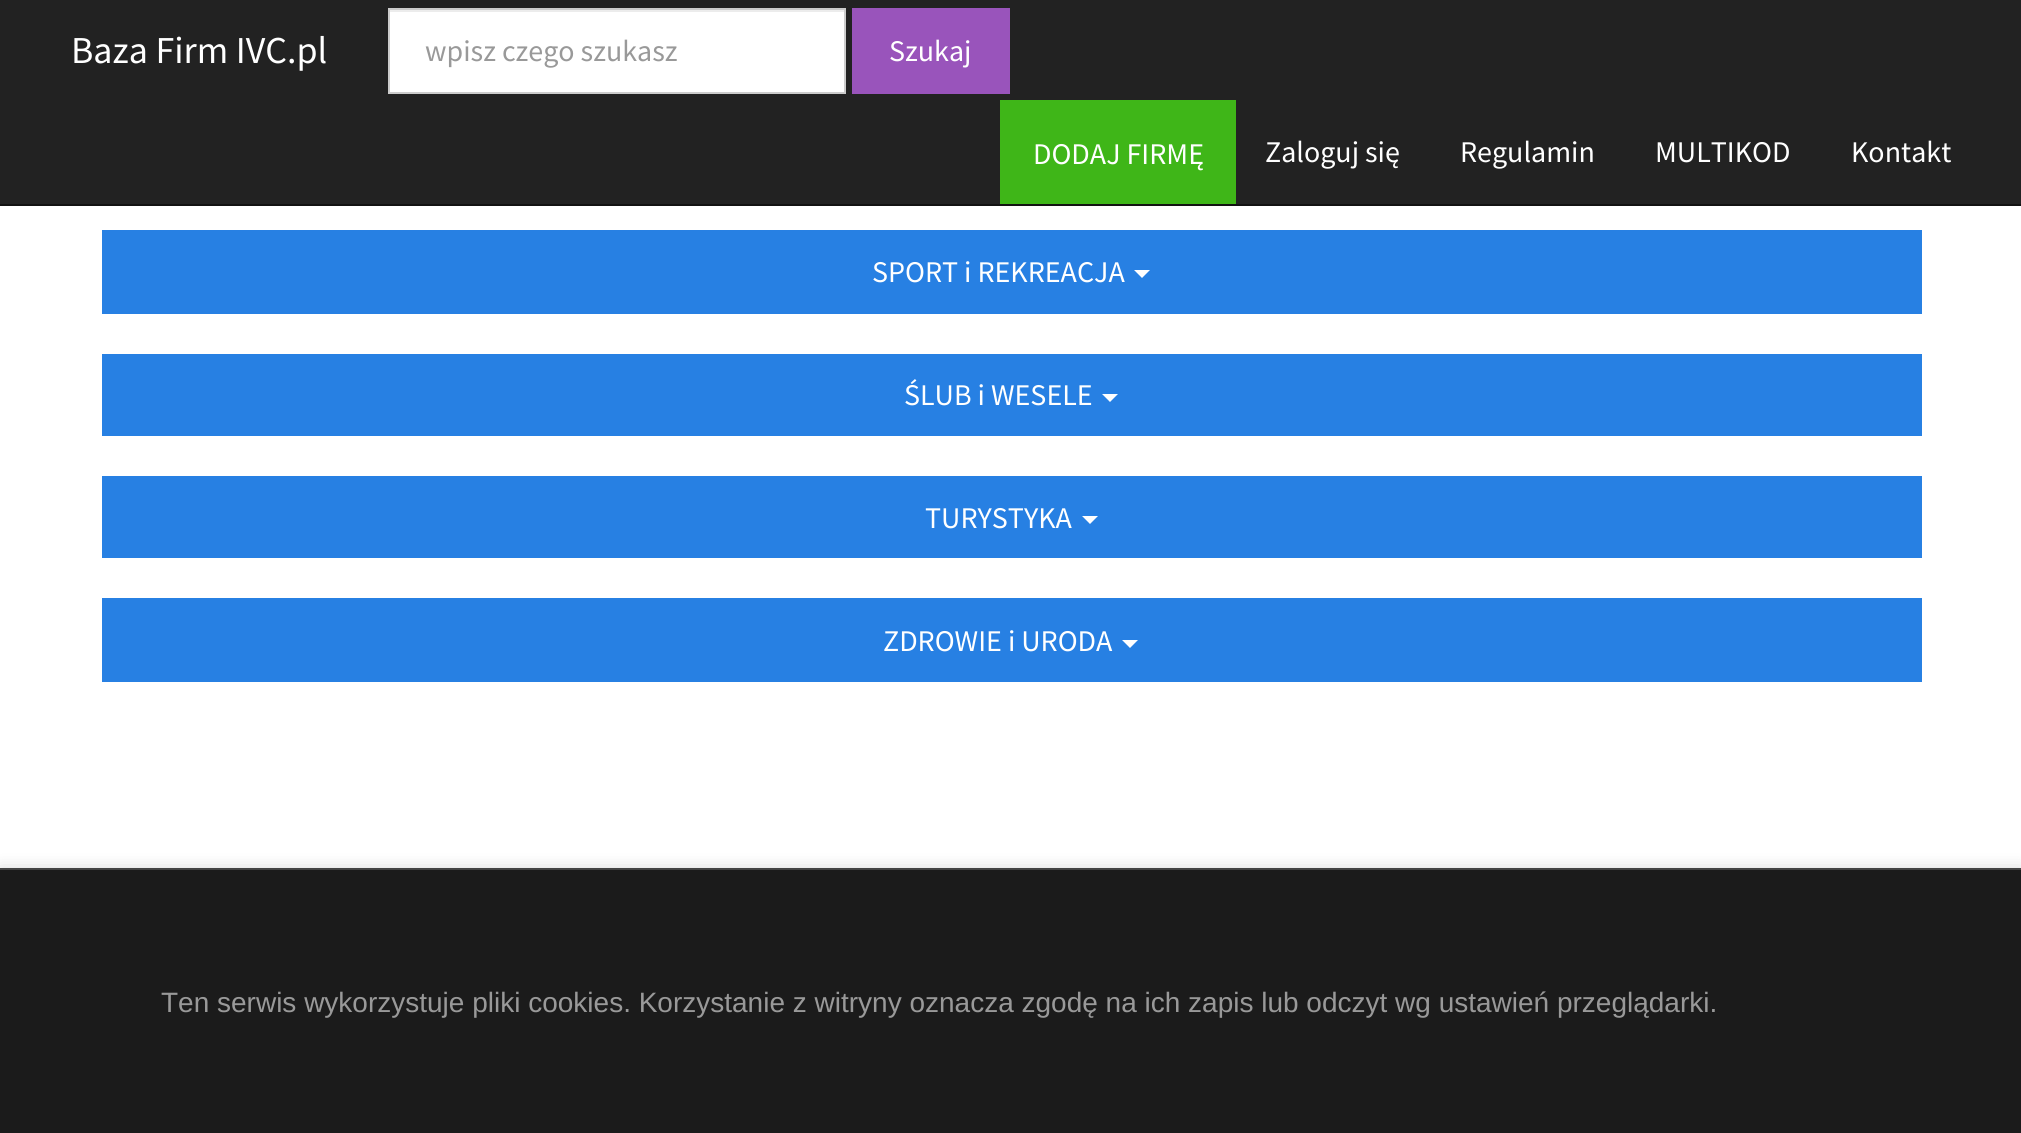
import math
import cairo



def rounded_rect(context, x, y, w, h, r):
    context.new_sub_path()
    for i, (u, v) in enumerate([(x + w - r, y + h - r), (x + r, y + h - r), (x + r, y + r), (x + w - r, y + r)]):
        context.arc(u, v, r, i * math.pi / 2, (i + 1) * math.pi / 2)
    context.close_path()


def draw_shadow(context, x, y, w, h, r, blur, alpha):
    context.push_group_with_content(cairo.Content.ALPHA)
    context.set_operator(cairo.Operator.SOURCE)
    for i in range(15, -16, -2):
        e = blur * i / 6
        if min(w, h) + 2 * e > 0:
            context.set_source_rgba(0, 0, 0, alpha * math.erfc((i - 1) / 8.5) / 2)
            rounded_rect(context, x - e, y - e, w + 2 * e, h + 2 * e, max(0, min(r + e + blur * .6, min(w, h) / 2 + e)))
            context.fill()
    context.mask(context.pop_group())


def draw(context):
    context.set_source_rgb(1, 1, 1)
    context.paint()
    context.set_source_rgb(34 / 255, 34 / 255, 34 / 255)
    context.rectangle(0, 0, 2021, 204)
    context.fill()
    context.set_source_rgb(18 / 255, 18 / 255, 18 / 255)
    context.rectangle(0, 204, 2021, 2)
    context.fill()
    context.set_source_rgb(1, 1, 1)
    context.rectangle(390, 12, 454, 80)
    context.fill()
    context.set_source_rgb(236 / 255, 236 / 255, 236 / 255)
    context.rectangle(390, 10, 454, 2)
    context.fill()
    context.rectangle(389, 9, 456, 84)
    context.set_source_rgb(204 / 255, 204 / 255, 204 / 255)
    context.stroke()
    context.set_source_rgb(153 / 255, 84 / 255, 187 / 255)
    context.rectangle(852, 8, 158, 86)
    context.fill()
    context.set_source_rgb(63 / 255, 182 / 255, 24 / 255)
    context.rectangle(1000, 100, 236, 104)
    context.fill()
    context.set_source_rgb(39 / 255, 128 / 255, 227 / 255)
    context.rectangle(102, 230, 1820, 84)
    context.fill()
    context.set_source_rgb(1, 1, 1)
    context.new_path()
    context.move_to(1134, 270)
    context.line_to(1150, 270)
    context.line_to(1142, 278)
    context.close_path()
    context.fill()
    context.set_source_rgb(39 / 255, 128 / 255, 227 / 255)
    context.rectangle(102, 354, 1820, 82)
    context.fill()
    context.set_source_rgb(1, 1, 1)
    context.new_path()
    context.move_to(1102, 394)
    context.line_to(1118, 394)
    context.line_to(1110, 402)
    context.close_path()
    context.fill()
    context.set_source_rgb(39 / 255, 128 / 255, 227 / 255)
    context.rectangle(102, 476, 1820, 82)
    context.fill()
    context.set_source_rgb(1, 1, 1)
    context.new_path()
    context.move_to(1082, 516)
    context.line_to(1098, 516)
    context.line_to(1090, 524)
    context.close_path()
    context.fill()
    context.set_source_rgb(39 / 255, 128 / 255, 227 / 255)
    context.rectangle(102, 598, 1820, 84)
    context.fill()
    context.set_source_rgb(1, 1, 1)
    context.new_path()
    context.move_to(1122, 640)
    context.line_to(1138, 640)
    context.line_to(1130, 648)
    context.close_path()
    context.fill()
    context.set_source_rgb(0, 0, 0)
    draw_shadow(context, 0, 868, 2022, 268, 0, 8, 0.15)
    context.set_source_rgb(27 / 255, 27 / 255, 27 / 255)
    context.rectangle(0, 870, 2021, 263)
    context.fill()
    context.set_source_rgb(68 / 255, 68 / 255, 68 / 255)
    context.rectangle(0, 868, 2021, 2)
    context.fill()
    context.select_font_face("Source Sans Pro")
    context.set_font_size(38)
    context.set_source_rgb(1, 1, 1)
    context.move_to(71, 63)
    context.show_text("Baza Firm IVC.pl")
    context.set_font_size(30)
    context.set_source_rgb(153 / 255, 153 / 255, 153 / 255)
    context.move_to(425, 61)
    context.show_text("wpisz czego szukasz")
    context.set_source_rgb(1, 1, 1)
    context.move_to(889, 61)
    context.show_text("Szukaj")
    context.move_to(1033, 164)
    context.show_text("DODAJ FIRMĘ")
    context.move_to(1265, 162)
    context.show_text("Zaloguj się")
    context.move_to(1460, 162)
    context.show_text("Regulamin")
    context.move_to(1655, 162)
    context.show_text("MULTIKOD")
    context.move_to(1851, 162)
    context.show_text("Kontakt")
    context.move_to(872, 282)
    context.show_text("SPORT i REKREACJA")
    context.move_to(904, 405)
    context.show_text("ŚLUB i WESELE")
    context.move_to(925, 528)
    context.show_text("TURYSTYKA")
    context.move_to(883, 651)
    context.show_text("ZDROWIE i URODA")
    context.select_font_face("Liberation Sans")
    context.set_font_size(28)
    context.set_source_rgb(153 / 255, 153 / 255, 153 / 255)
    context.move_to(161, 1012)
    context.show_text("Ten serwis wykorzystuje pliki cookies. Korzystanie z witryny oznacza zgodę na ich zapis lub odczyt wg ustawień przeglądarki.")


surface = cairo.ImageSurface(cairo.Format.RGB24, 2021, 1133)
context = cairo.Context(surface)
options = cairo.FontOptions()
options.set_hint_metrics(cairo.HintMetrics.OFF)
options.set_hint_style(cairo.HintStyle.NONE)
context.set_font_options(options)
context.set_miter_limit(4)
draw(context)
surface.write_to_png("out.png")
